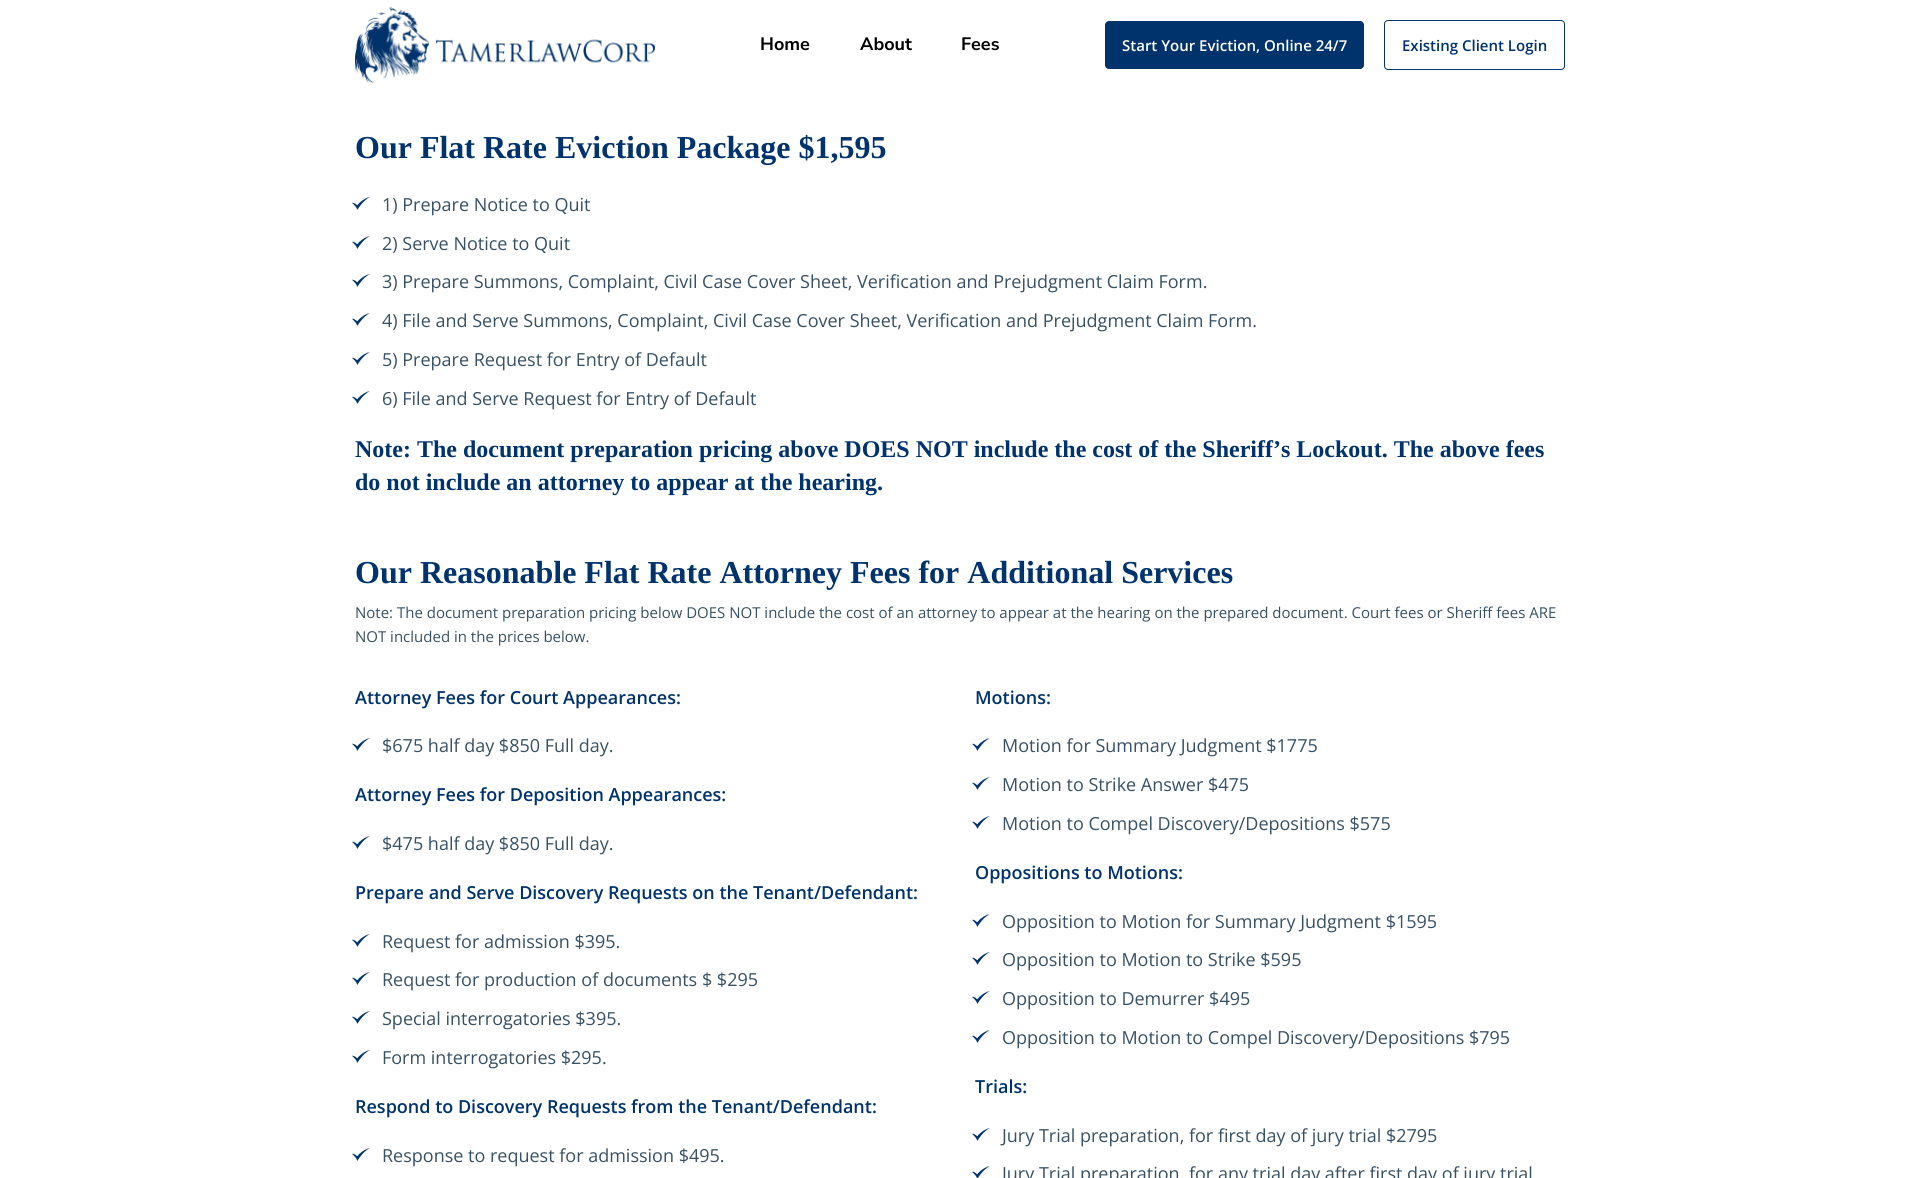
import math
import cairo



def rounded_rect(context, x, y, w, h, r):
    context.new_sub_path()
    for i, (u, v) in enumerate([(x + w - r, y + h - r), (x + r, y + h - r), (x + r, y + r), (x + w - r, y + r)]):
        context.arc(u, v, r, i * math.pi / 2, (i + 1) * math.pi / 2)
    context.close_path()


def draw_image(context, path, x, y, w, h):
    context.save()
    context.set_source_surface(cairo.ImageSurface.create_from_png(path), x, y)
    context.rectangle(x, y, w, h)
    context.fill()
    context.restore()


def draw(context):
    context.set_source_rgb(1, 1, 1)
    context.paint()
    draw_image(context, "images/1.png", 355, 7, 300, 76)
    context.set_source_rgb(0, 50 / 255, 107 / 255)
    rounded_rect(context, 1105, 21, 259, 48, 4)
    context.fill()
    rounded_rect(context, 1384.5, 20.5, 180, 49, 3.5)
    context.set_line_width(1)
    context.stroke()
    draw_image(context, "images/2.png", 352, 197, 18, 13)
    draw_image(context, "images/2.png", 352, 236, 18, 13)
    draw_image(context, "images/2.png", 352, 274, 18, 13)
    draw_image(context, "images/2.png", 352, 313, 18, 13)
    draw_image(context, "images/2.png", 352, 352, 18, 13)
    draw_image(context, "images/2.png", 352, 391, 18, 13)
    draw_image(context, "images/2.png", 352, 738, 18, 13)
    draw_image(context, "images/2.png", 352, 836, 18, 13)
    draw_image(context, "images/2.png", 352, 934, 18, 13)
    draw_image(context, "images/2.png", 352, 972, 18, 13)
    draw_image(context, "images/2.png", 352, 1011, 18, 13)
    draw_image(context, "images/2.png", 352, 1050, 18, 13)
    draw_image(context, "images/2.png", 352, 1148, 18, 13)
    draw_image(context, "images/2.png", 972, 738, 18, 13)
    draw_image(context, "images/2.png", 972, 777, 18, 13)
    draw_image(context, "images/2.png", 972, 816, 18, 13)
    draw_image(context, "images/2.png", 972, 914, 18, 13)
    draw_image(context, "images/2.png", 972, 952, 18, 13)
    draw_image(context, "images/2.png", 972, 991, 18, 13)
    draw_image(context, "images/2.png", 972, 1030, 18, 13)
    draw_image(context, "images/2.png", 972, 1128, 18, 13)
    draw_image(context, "images/3.png", 972, 1166, 18, 12)
    context.select_font_face("Nunito Sans", cairo.FontSlant.NORMAL, cairo.FontWeight.BOLD)
    context.set_font_size(18)
    context.set_source_rgb(0, 0, 0)
    context.move_to(760, 50)
    context.show_text("Home")
    context.move_to(860, 50)
    context.show_text("About")
    context.move_to(961, 50)
    context.show_text("Fees")
    context.select_font_face("Open Sans SemiBold")
    context.set_font_size(15)
    context.set_source_rgb(1, 1, 1)
    context.move_to(1122, 51)
    context.show_text("Start Your Eviction, Online 24/7")
    context.set_source_rgb(0, 50 / 255, 107 / 255)
    context.move_to(1402, 51)
    context.show_text("Existing Client Login")
    context.select_font_face("Liberation Serif", cairo.FontSlant.NORMAL, cairo.FontWeight.BOLD)
    context.set_font_size(32)
    context.move_to(355, 158)
    context.show_text("Our Flat Rate Eviction Package $1,595")
    context.select_font_face("Open Sans")
    context.set_font_size(18)
    context.set_source_rgb(56 / 255, 80 / 255, 100 / 255)
    context.move_to(382, 211)
    context.show_text("1) Prepare Notice to Quit")
    context.move_to(382, 250)
    context.show_text("2) Serve Notice to Quit")
    context.move_to(382, 288)
    context.show_text("3) Prepare Summons, Complaint, Civil Case Cover Sheet, Verification and Prejudgment Claim Form.")
    context.move_to(382, 327)
    context.show_text("4) File and Serve Summons, Complaint, Civil Case Cover Sheet, Verification and Prejudgment Claim Form.")
    context.move_to(382, 366)
    context.show_text("5) Prepare Request for Entry of Default")
    context.move_to(382, 405)
    context.show_text("6) File and Serve Request for Entry of Default")
    context.select_font_face("Liberation Serif", cairo.FontSlant.NORMAL, cairo.FontWeight.BOLD)
    context.set_font_size(24)
    context.set_source_rgb(0, 50 / 255, 107 / 255)
    context.move_to(355, 457)
    context.show_text("Note: The document preparation pricing above DOES NOT include the cost of the Sheriff’s Lockout. The above fees")
    context.move_to(355, 490)
    context.show_text("do not include an attorney to appear at the hearing.")
    context.set_font_size(32)
    context.move_to(355, 583)
    context.show_text("Our Reasonable Flat Rate Attorney Fees for Additional Services")
    context.select_font_face("Open Sans")
    context.set_font_size(15)
    context.set_source_rgb(56 / 255, 80 / 255, 100 / 255)
    context.move_to(355, 618)
    context.show_text("Note: The document preparation pricing below DOES NOT include the cost of an attorney to appear at the hearing on the prepared document. Court fees or Sheriff fees ARE")
    context.move_to(355, 642)
    context.show_text("NOT included in the prices below.")
    context.select_font_face("Open Sans SemiBold")
    context.set_font_size(18)
    context.set_source_rgb(0, 50 / 255, 107 / 255)
    context.move_to(355, 704)
    context.show_text("Attorney Fees for Court Appearances:")
    context.select_font_face("Open Sans")
    context.set_source_rgb(56 / 255, 80 / 255, 100 / 255)
    context.move_to(382, 752)
    context.show_text("$675 half day $850 Full day.")
    context.select_font_face("Open Sans SemiBold")
    context.set_source_rgb(0, 50 / 255, 107 / 255)
    context.move_to(355, 801)
    context.show_text("Attorney Fees for Deposition Appearances:")
    context.select_font_face("Open Sans")
    context.set_source_rgb(56 / 255, 80 / 255, 100 / 255)
    context.move_to(382, 850)
    context.show_text("$475 half day $850 Full day.")
    context.select_font_face("Open Sans SemiBold")
    context.set_source_rgb(0, 50 / 255, 107 / 255)
    context.move_to(355, 899)
    context.show_text("Prepare and Serve Discovery Requests on the Tenant/Defendant:")
    context.select_font_face("Open Sans")
    context.set_source_rgb(56 / 255, 80 / 255, 100 / 255)
    context.move_to(382, 948)
    context.show_text("Request for admission $395.")
    context.move_to(382, 986)
    context.show_text("Request for production of documents $ $295")
    context.move_to(382, 1025)
    context.show_text("Special interrogatories $395.")
    context.move_to(382, 1064)
    context.show_text("Form interrogatories $295.")
    context.select_font_face("Open Sans SemiBold")
    context.set_source_rgb(0, 50 / 255, 107 / 255)
    context.move_to(355, 1113)
    context.show_text("Respond to Discovery Requests from the Tenant/Defendant:")
    context.select_font_face("Open Sans")
    context.set_source_rgb(56 / 255, 80 / 255, 100 / 255)
    context.move_to(382, 1162)
    context.show_text("Response to request for admission $495.")
    context.select_font_face("Open Sans SemiBold")
    context.set_source_rgb(0, 50 / 255, 107 / 255)
    context.move_to(975, 704)
    context.show_text("Motions:")
    context.select_font_face("Open Sans")
    context.set_source_rgb(56 / 255, 80 / 255, 100 / 255)
    context.move_to(1002, 752)
    context.show_text("Motion for Summary Judgment $1775")
    context.move_to(1002, 791)
    context.show_text("Motion to Strike Answer $475")
    context.move_to(1002, 830)
    context.show_text("Motion to Compel Discovery/Depositions $575")
    context.select_font_face("Open Sans SemiBold")
    context.set_source_rgb(0, 50 / 255, 107 / 255)
    context.move_to(975, 879)
    context.show_text("Oppositions to Motions:")
    context.select_font_face("Open Sans")
    context.set_source_rgb(56 / 255, 80 / 255, 100 / 255)
    context.move_to(1002, 928)
    context.show_text("Opposition to Motion for Summary Judgment $1595")
    context.move_to(1002, 966)
    context.show_text("Opposition to Motion to Strike $595")
    context.move_to(1002, 1005)
    context.show_text("Opposition to Demurrer $495")
    context.move_to(1002, 1044)
    context.show_text("Opposition to Motion to Compel Discovery/Depositions $795")
    context.select_font_face("Open Sans SemiBold")
    context.set_source_rgb(0, 50 / 255, 107 / 255)
    context.move_to(975, 1093)
    context.show_text("Trials:")
    context.select_font_face("Open Sans")
    context.set_source_rgb(56 / 255, 80 / 255, 100 / 255)
    context.move_to(1002, 1142)
    context.show_text("Jury Trial preparation, for first day of jury trial $2795")
    context.move_to(1002, 1180)
    context.show_text("Jury Trial preparation, for any trial day after first day of jury trial")


surface = cairo.ImageSurface(cairo.Format.RGB24, 1920, 1178)
context = cairo.Context(surface)
options = cairo.FontOptions()
options.set_hint_metrics(cairo.HintMetrics.OFF)
options.set_hint_style(cairo.HintStyle.NONE)
context.set_font_options(options)
context.set_miter_limit(4)
draw(context)
surface.write_to_png("out.png")
